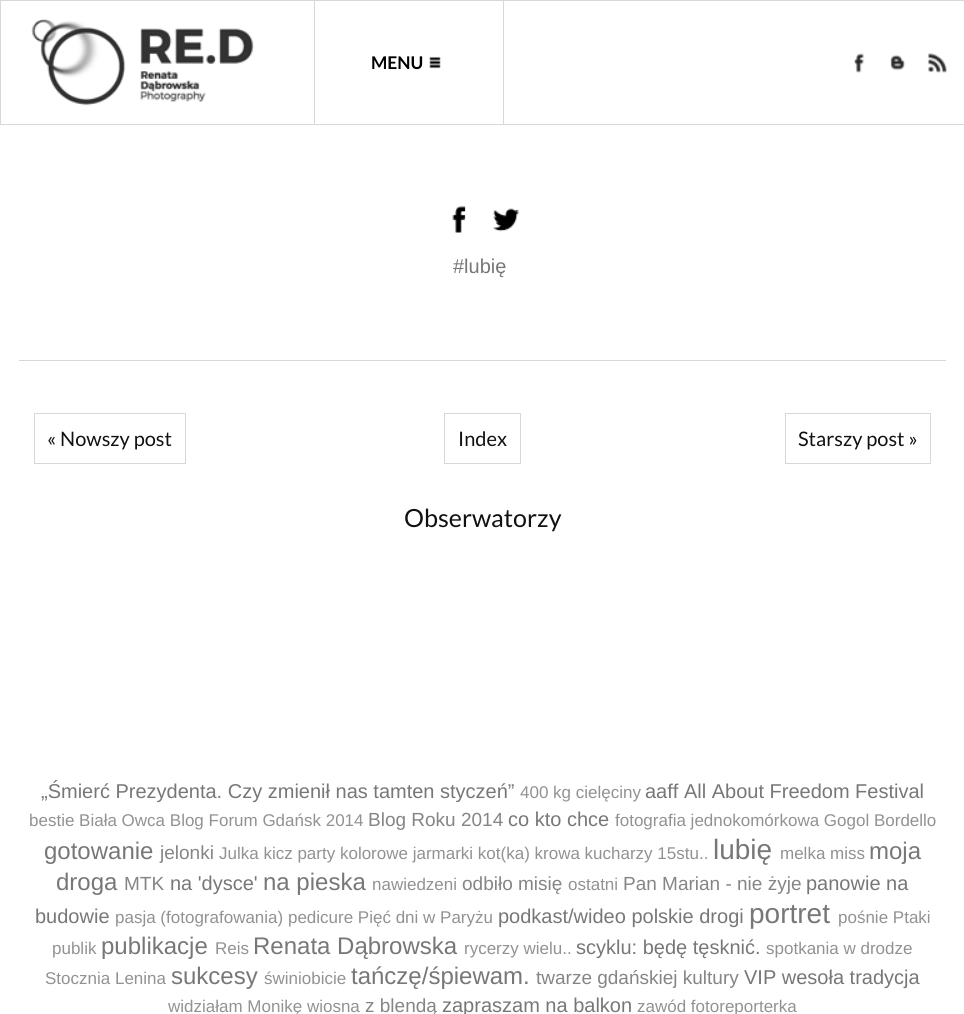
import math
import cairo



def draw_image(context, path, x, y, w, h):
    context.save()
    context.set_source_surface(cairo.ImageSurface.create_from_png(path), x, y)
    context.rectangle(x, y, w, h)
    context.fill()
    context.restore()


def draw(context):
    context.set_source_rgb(1, 1, 1)
    context.paint()
    context.set_source_rgb(215 / 255, 215 / 255, 215 / 255)
    context.rectangle(0, 0, 964, 1)
    context.fill()
    context.rectangle(0, 124, 964, 1)
    context.fill()
    context.rectangle(0, 1, 1, 123)
    context.fill()
    draw_image(context, "images/1.png", 31, 18, 223, 88)
    context.rectangle(503, 1, 1, 123)
    context.fill()
    context.rectangle(314, 1, 1, 123)
    context.fill()
    draw_image(context, "images/2.png", 429, 56, 12, 13)
    draw_image(context, "images/3.png", 854, 53, 11, 20)
    draw_image(context, "images/4.png", 890, 54, 15, 17)
    draw_image(context, "images/5.png", 927, 53, 20, 20)
    context.rectangle(19, 360, 927, 1)
    context.fill()
    draw_image(context, "images/6.png", 452, 206, 14, 27)
    draw_image(context, "images/7.png", 493, 208, 26, 24)
    context.rectangle(34.5, 413.5, 151, 50)
    context.set_line_width(1)
    context.stroke()
    context.rectangle(444.5, 413.5, 76, 50)
    context.stroke()
    context.rectangle(785.5, 413.5, 145, 50)
    context.stroke()
    context.select_font_face("Lato", cairo.FontSlant.NORMAL, cairo.FontWeight.BOLD)
    context.set_font_size(17.5)
    context.set_source_rgb(0, 0, 0)
    context.move_to(371, 69)
    context.show_text("MENU")
    context.select_font_face("Liberation Sans")
    context.set_font_size(20)
    context.set_source_rgb(119 / 255, 119 / 255, 119 / 255)
    context.move_to(453, 273)
    context.show_text("#lubię")
    context.select_font_face("Lato")
    context.set_source_rgb(17 / 255, 17 / 255, 17 / 255)
    context.move_to(47, 446)
    context.show_text("« Nowszy post")
    context.move_to(458, 446)
    context.show_text("Index")
    context.move_to(798, 446)
    context.show_text("Starszy post »")
    context.set_font_size(25)
    context.move_to(404, 527)
    context.show_text("Obserwatorzy")
    context.select_font_face("Liberation Sans")
    context.set_font_size(20)
    context.set_source_rgb(119 / 255, 119 / 255, 119 / 255)
    context.move_to(41, 798)
    context.show_text("„Śmierć Prezydenta. Czy zmienił nas tamten styczeń”")
    context.set_font_size(17)
    context.set_source_rgb(146 / 255, 146 / 255, 146 / 255)
    context.move_to(520, 798)
    context.show_text("400 kg cielęciny")
    context.set_font_size(20)
    context.set_source_rgb(119 / 255, 119 / 255, 119 / 255)
    context.move_to(645, 798)
    context.show_text("aaff All About Freedom Festival")
    context.set_font_size(17)
    context.set_source_rgb(146 / 255, 146 / 255, 146 / 255)
    context.move_to(29, 826)
    context.show_text("bestie Biała Owca Blog Forum Gdańsk 2014")
    context.set_font_size(19)
    context.set_source_rgb(133 / 255, 133 / 255, 133 / 255)
    context.move_to(368, 826)
    context.show_text("Blog Roku 2014")
    context.set_font_size(20)
    context.set_source_rgb(119 / 255, 119 / 255, 119 / 255)
    context.move_to(508, 826)
    context.show_text("co kto chce")
    context.set_font_size(17)
    context.set_source_rgb(146 / 255, 146 / 255, 146 / 255)
    context.move_to(615, 826)
    context.show_text("fotografia jednokomórkowa Gogol Bordello")
    context.set_font_size(24)
    context.set_source_rgb(119 / 255, 119 / 255, 119 / 255)
    context.move_to(44, 859)
    context.show_text("gotowanie")
    context.set_font_size(19)
    context.set_source_rgb(133 / 255, 133 / 255, 133 / 255)
    context.move_to(160, 859)
    context.show_text("jelonki")
    context.set_font_size(17)
    context.set_source_rgb(146 / 255, 146 / 255, 146 / 255)
    context.move_to(219, 859)
    context.show_text("Julka kicz party kolorowe jarmarki kot(ka) krowa kucharzy 15stu..")
    context.set_font_size(28)
    context.set_source_rgb(119 / 255, 119 / 255, 119 / 255)
    context.move_to(713, 859)
    context.show_text("lubię")
    context.set_font_size(17)
    context.set_source_rgb(146 / 255, 146 / 255, 146 / 255)
    context.move_to(780, 859)
    context.show_text("melka miss")
    context.set_font_size(24)
    context.set_source_rgb(119 / 255, 119 / 255, 119 / 255)
    context.move_to(869, 859)
    context.show_text("moja")
    context.move_to(56, 890)
    context.show_text("droga")
    context.set_font_size(19)
    context.set_source_rgb(133 / 255, 133 / 255, 133 / 255)
    context.move_to(124, 890)
    context.show_text("MTK")
    context.set_font_size(20)
    context.set_source_rgb(119 / 255, 119 / 255, 119 / 255)
    context.move_to(170, 890)
    context.show_text("na 'dysce'")
    context.set_font_size(24)
    context.move_to(263, 890)
    context.show_text("na pieska")
    context.set_font_size(17)
    context.set_source_rgb(146 / 255, 146 / 255, 146 / 255)
    context.move_to(372, 890)
    context.show_text("nawiedzeni")
    context.set_font_size(19)
    context.set_source_rgb(133 / 255, 133 / 255, 133 / 255)
    context.move_to(462, 890)
    context.show_text("odbiło misię")
    context.set_font_size(17)
    context.set_source_rgb(146 / 255, 146 / 255, 146 / 255)
    context.move_to(568, 890)
    context.show_text("ostatni")
    context.set_font_size(19)
    context.set_source_rgb(133 / 255, 133 / 255, 133 / 255)
    context.move_to(623, 890)
    context.show_text("Pan Marian - nie żyje")
    context.set_font_size(20)
    context.set_source_rgb(119 / 255, 119 / 255, 119 / 255)
    context.move_to(806, 890)
    context.show_text("panowie na")
    context.move_to(35, 923)
    context.show_text("budowie")
    context.set_font_size(17)
    context.set_source_rgb(146 / 255, 146 / 255, 146 / 255)
    context.move_to(115, 923)
    context.show_text("pasja (fotografowania) pedicure Pięć dni w Paryżu")
    context.set_font_size(20)
    context.set_source_rgb(119 / 255, 119 / 255, 119 / 255)
    context.move_to(498, 923)
    context.show_text("podkast/wideo polskie drogi")
    context.set_font_size(28)
    context.move_to(749, 923)
    context.show_text("portret")
    context.set_font_size(17)
    context.set_source_rgb(146 / 255, 146 / 255, 146 / 255)
    context.move_to(838, 923)
    context.show_text("pośnie Ptaki")
    context.move_to(52, 954)
    context.show_text("publik")
    context.set_font_size(24)
    context.set_source_rgb(119 / 255, 119 / 255, 119 / 255)
    context.move_to(101, 954)
    context.show_text("publikacje")
    context.set_font_size(17)
    context.set_source_rgb(146 / 255, 146 / 255, 146 / 255)
    context.move_to(215, 954)
    context.show_text("Reis")
    context.set_font_size(24)
    context.set_source_rgb(119 / 255, 119 / 255, 119 / 255)
    context.move_to(253, 954)
    context.show_text("Renata Dąbrowska")
    context.set_font_size(17)
    context.set_source_rgb(146 / 255, 146 / 255, 146 / 255)
    context.move_to(464, 954)
    context.show_text("rycerzy wielu..")
    context.set_font_size(20)
    context.set_source_rgb(119 / 255, 119 / 255, 119 / 255)
    context.move_to(576, 954)
    context.show_text("scyklu: będę tęsknić.")
    context.set_font_size(17)
    context.set_source_rgb(146 / 255, 146 / 255, 146 / 255)
    context.move_to(766, 954)
    context.show_text("spotkania w drodze")
    context.move_to(45, 984)
    context.show_text("Stocznia Lenina")
    context.set_font_size(24)
    context.set_source_rgb(119 / 255, 119 / 255, 119 / 255)
    context.move_to(171, 984)
    context.show_text("sukcesy")
    context.set_font_size(17)
    context.set_source_rgb(146 / 255, 146 / 255, 146 / 255)
    context.move_to(264, 984)
    context.show_text("świniobicie")
    context.set_font_size(24)
    context.set_source_rgb(119 / 255, 119 / 255, 119 / 255)
    context.move_to(351, 984)
    context.show_text("tańczę/śpiewam.")
    context.set_font_size(19)
    context.set_source_rgb(133 / 255, 133 / 255, 133 / 255)
    context.move_to(536, 984)
    context.show_text("twarze gdańskiej kultury")
    context.set_font_size(20)
    context.set_source_rgb(119 / 255, 119 / 255, 119 / 255)
    context.move_to(744, 984)
    context.show_text("VIP wesoła tradycja")
    context.set_font_size(17)
    context.set_source_rgb(146 / 255, 146 / 255, 146 / 255)
    context.move_to(168, 1012)
    context.show_text("widziałam Monikę wiosna")
    context.set_font_size(19)
    context.set_source_rgb(133 / 255, 133 / 255, 133 / 255)
    context.move_to(365, 1012)
    context.show_text("z blendą")
    context.set_font_size(20)
    context.set_source_rgb(119 / 255, 119 / 255, 119 / 255)
    context.move_to(442, 1012)
    context.show_text("zapraszam na balkon")
    context.set_font_size(17)
    context.set_source_rgb(146 / 255, 146 / 255, 146 / 255)
    context.move_to(637, 1012)
    context.show_text("zawód fotoreporterka")


surface = cairo.ImageSurface(cairo.Format.RGB24, 964, 1014)
context = cairo.Context(surface)
options = cairo.FontOptions()
options.set_hint_metrics(cairo.HintMetrics.OFF)
options.set_hint_style(cairo.HintStyle.NONE)
context.set_font_options(options)
context.set_miter_limit(4)
draw(context)
surface.write_to_png("out.png")
